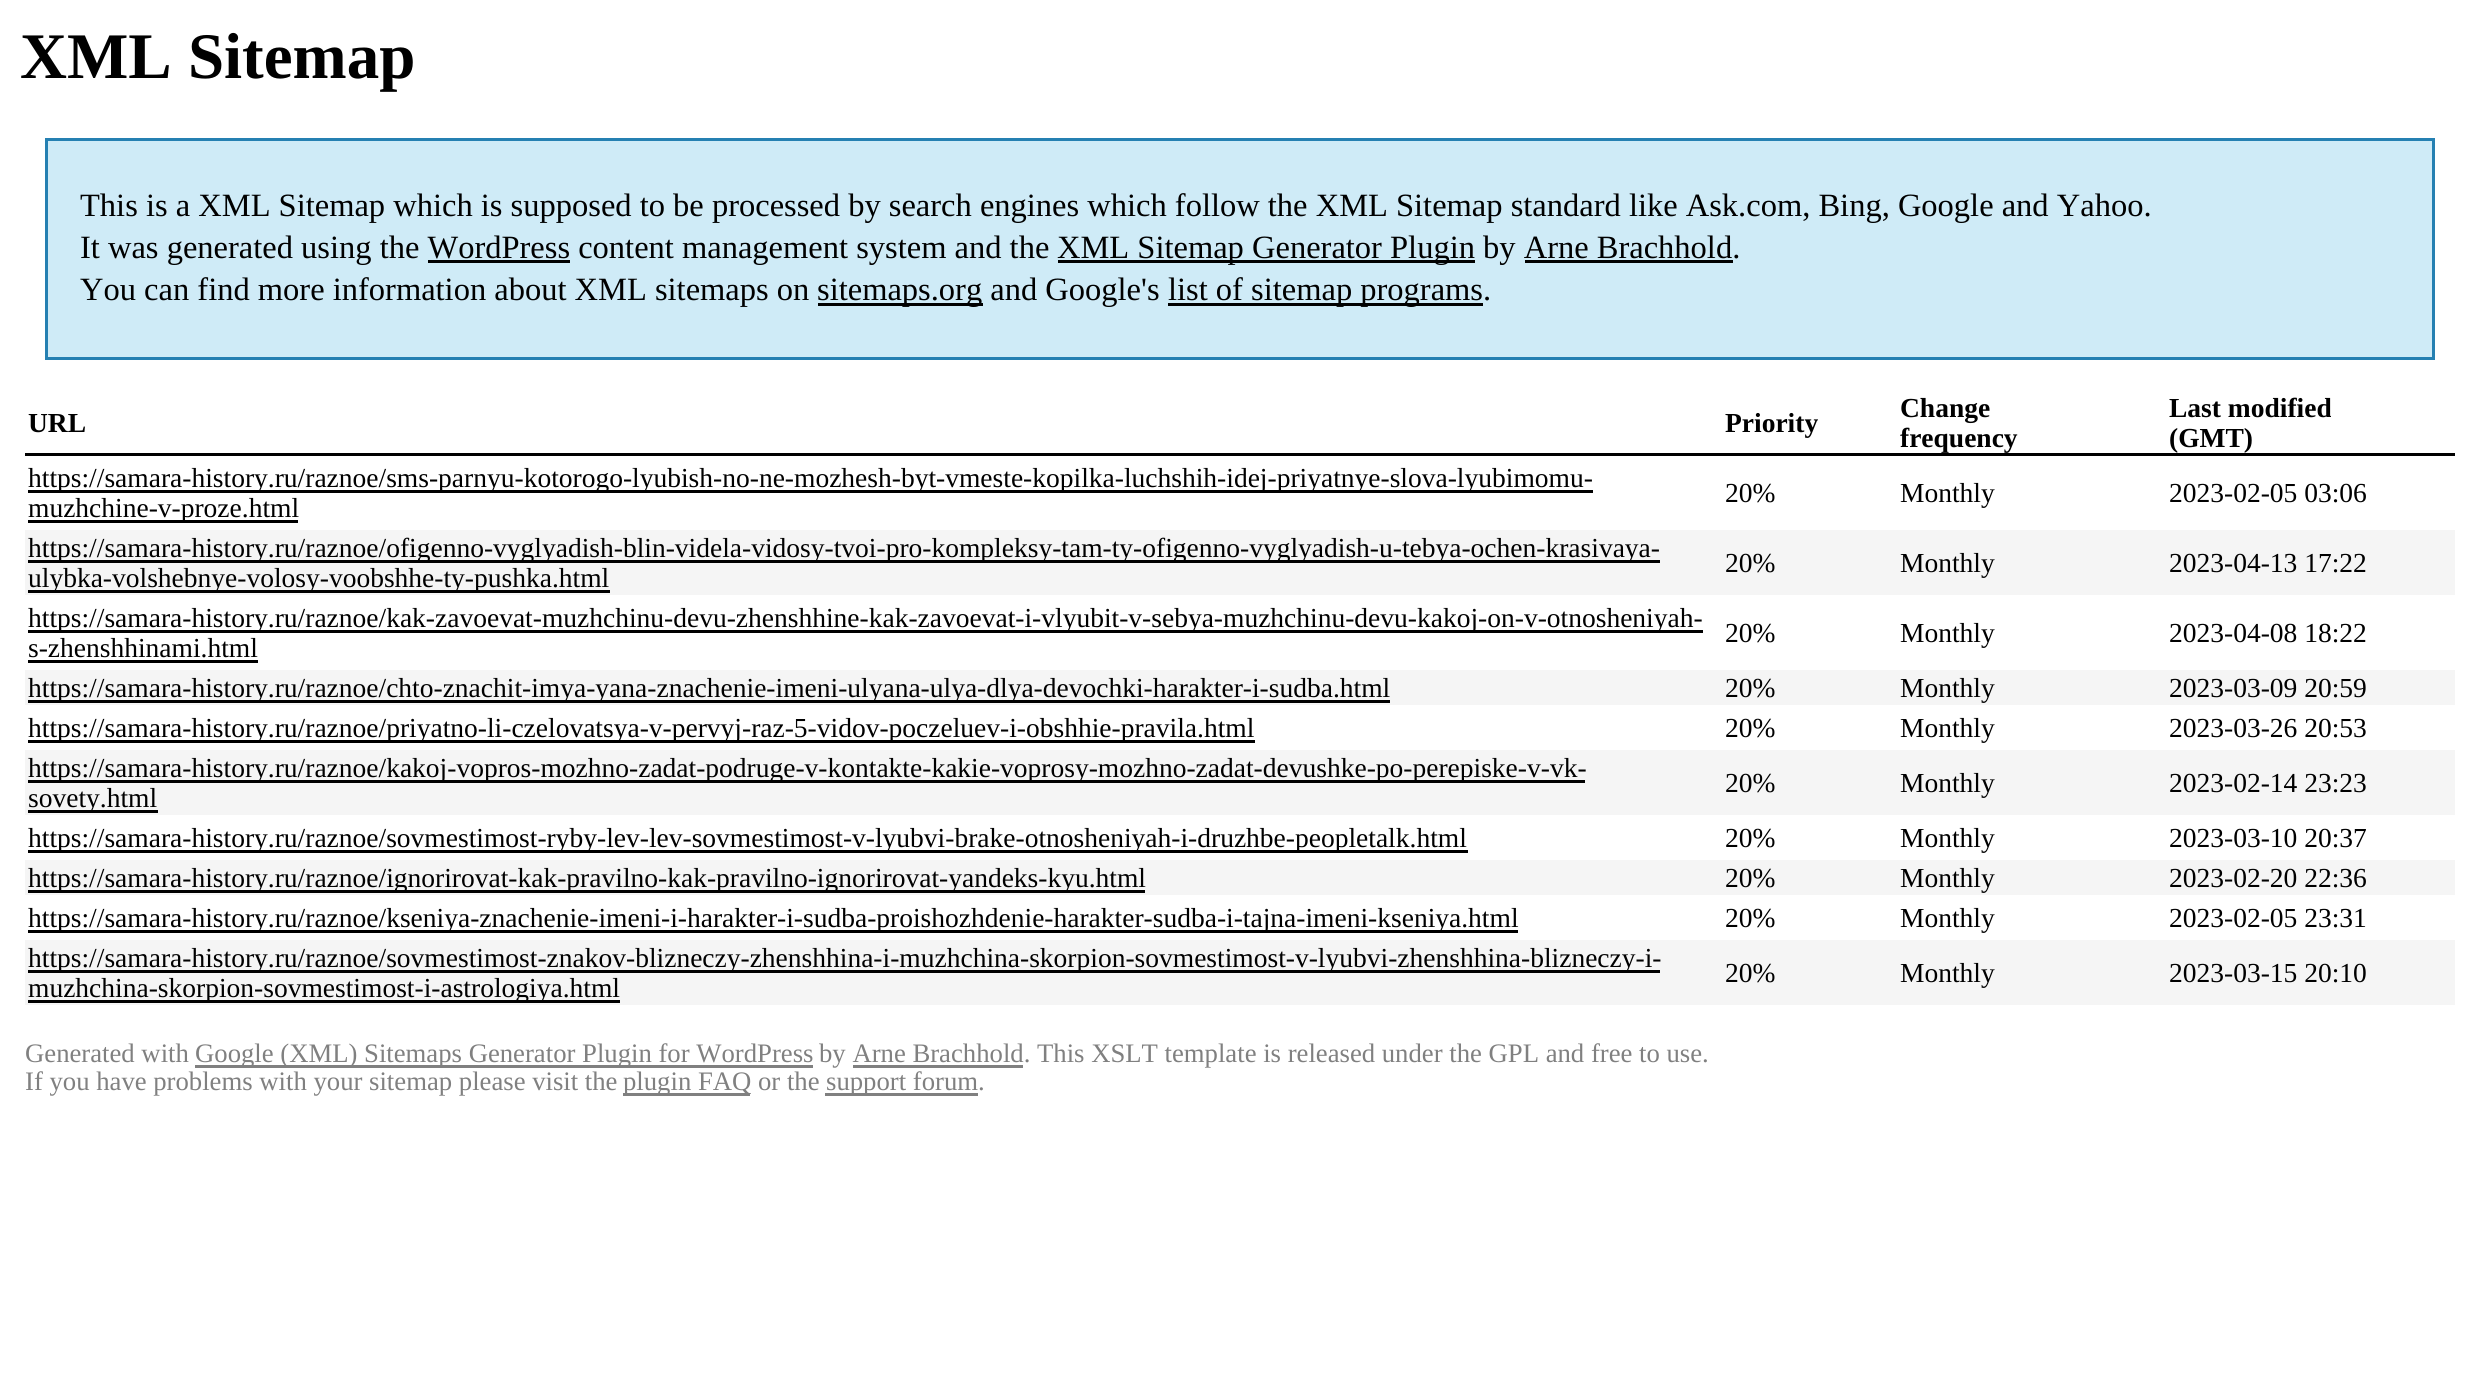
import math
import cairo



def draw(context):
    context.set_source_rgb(1, 1, 1)
    context.paint()
    context.set_source_rgb(207 / 255, 235 / 255, 247 / 255)
    context.rectangle(46.5, 139.5, 2387, 219)
    context.fill_preserve()
    context.set_source_rgb(37 / 255, 128 / 255, 178 / 255)
    context.set_line_width(3)
    context.stroke()
    context.set_source_rgb(0, 0, 0)
    context.rectangle(1058, 260, 417, 3)
    context.fill()
    context.rectangle(428, 260, 142, 3)
    context.fill()
    context.rectangle(1525, 260, 208, 3)
    context.fill()
    context.rectangle(818, 303, 165, 3)
    context.fill()
    context.rectangle(1168, 303, 315, 3)
    context.fill()
    context.rectangle(25, 453, 2430, 3)
    context.fill()
    context.rectangle(28, 490, 1565, 3)
    context.fill()
    context.rectangle(28, 520, 270, 3)
    context.fill()
    context.set_source_rgb(245 / 255, 245 / 255, 245 / 255)
    context.rectangle(25, 530, 2430, 65)
    context.fill()
    context.set_source_rgb(0, 0, 0)
    context.rectangle(28, 560, 1632, 3)
    context.fill()
    context.rectangle(28, 590, 582, 3)
    context.fill()
    context.rectangle(28, 630, 1675, 3)
    context.fill()
    context.rectangle(28, 660, 230, 3)
    context.fill()
    context.set_source_rgb(245 / 255, 245 / 255, 245 / 255)
    context.rectangle(25, 670, 2430, 35)
    context.fill()
    context.set_source_rgb(0, 0, 0)
    context.rectangle(28, 700, 1362, 3)
    context.fill()
    context.rectangle(28, 740, 1227, 3)
    context.fill()
    context.set_source_rgb(245 / 255, 245 / 255, 245 / 255)
    context.rectangle(25, 750, 2430, 65)
    context.fill()
    context.set_source_rgb(0, 0, 0)
    context.rectangle(28, 780, 1557, 3)
    context.fill()
    context.rectangle(28, 810, 130, 3)
    context.fill()
    context.rectangle(28, 850, 1440, 3)
    context.fill()
    context.set_source_rgb(245 / 255, 245 / 255, 245 / 255)
    context.rectangle(25, 860, 2430, 35)
    context.fill()
    context.set_source_rgb(0, 0, 0)
    context.rectangle(28, 890, 1117, 3)
    context.fill()
    context.rectangle(28, 930, 1490, 3)
    context.fill()
    context.set_source_rgb(245 / 255, 245 / 255, 245 / 255)
    context.rectangle(25, 940, 2430, 65)
    context.fill()
    context.set_source_rgb(0, 0, 0)
    context.rectangle(28, 970, 1632, 3)
    context.fill()
    context.rectangle(28, 1000, 592, 3)
    context.fill()
    context.set_source_rgb(128 / 255, 128 / 255, 128 / 255)
    context.rectangle(195, 1065, 618, 3)
    context.fill()
    context.rectangle(853, 1065, 170, 3)
    context.fill()
    context.rectangle(623, 1093, 127, 3)
    context.fill()
    context.rectangle(825, 1093, 153, 3)
    context.fill()
    context.select_font_face("Liberation Serif", cairo.FontSlant.NORMAL, cairo.FontWeight.BOLD)
    context.set_font_size(65)
    context.set_source_rgb(0, 0, 0)
    context.move_to(20, 78)
    context.show_text("XML Sitemap")
    context.select_font_face("Liberation Serif")
    context.set_font_size(32.5)
    context.move_to(80, 216)
    context.show_text("This is a XML Sitemap which is supposed to be processed by search engines which follow the XML Sitemap standard like Ask.com, Bing, Google and Yahoo.")
    context.move_to(80, 258)
    context.show_text("It was generated using the WordPress content management system and the")
    context.move_to(1057, 258)
    context.show_text("XML Sitemap Generator Plugin by Arne Brachhold.")
    context.move_to(80, 300)
    context.show_text("You can find more information about XML sitemaps on")
    context.move_to(817, 300)
    context.show_text("sitemaps.org and Google's")
    context.move_to(1168, 300)
    context.show_text("list of sitemap programs.")
    context.select_font_face("Liberation Serif", cairo.FontSlant.NORMAL, cairo.FontWeight.BOLD)
    context.set_font_size(27.5)
    context.move_to(28, 432)
    context.show_text("URL")
    context.move_to(1725, 432)
    context.show_text("Priority")
    context.move_to(1900, 417)
    context.show_text("Change")
    context.move_to(1900, 447)
    context.show_text("frequency")
    context.move_to(2169, 417)
    context.show_text("Last modified")
    context.move_to(2169, 447)
    context.show_text("(GMT)")
    context.select_font_face("Liberation Serif")
    context.move_to(28, 487)
    context.show_text("https://samara-history.ru/raznoe/sms-parnyu-kotorogo-lyubish-no-ne-mozhesh-byt-vmeste-kopilka-luchshih-idej-priyatnye-slova-lyubimomu-")
    context.move_to(28, 517)
    context.show_text("muzhchine-v-proze.html")
    context.move_to(1725, 502)
    context.show_text("20%")
    context.move_to(1900, 502)
    context.show_text("Monthly")
    context.move_to(2169, 502)
    context.show_text("2023-02-05 03:06")
    context.move_to(28, 557)
    context.show_text("https://samara-history.ru/raznoe/ofigenno-vyglyadish-blin-videla-vidosy-tvoi-pro-kompleksy-tam-ty-ofigenno-vyglyadish-u-tebya-ochen-krasivaya-")
    context.move_to(28, 587)
    context.show_text("ulybka-volshebnye-volosy-voobshhe-ty-pushka.html")
    context.move_to(1725, 572)
    context.show_text("20%")
    context.move_to(1900, 572)
    context.show_text("Monthly")
    context.move_to(2169, 572)
    context.show_text("2023-04-13 17:22")
    context.move_to(28, 627)
    context.show_text("https://samara-history.ru/raznoe/kak-zavoevat-muzhchinu-devu-zhenshhine-kak-zavoevat-i-vlyubit-v-sebya-muzhchinu-devu-kakoj-on-v-otnosheniyah-")
    context.move_to(28, 657)
    context.show_text("s-zhenshhinami.html")
    context.move_to(1725, 642)
    context.show_text("20%")
    context.move_to(1900, 642)
    context.show_text("Monthly")
    context.move_to(2169, 642)
    context.show_text("2023-04-08 18:22")
    context.move_to(28, 697)
    context.show_text("https://samara-history.ru/raznoe/chto-znachit-imya-yana-znachenie-imeni-ulyana-ulya-dlya-devochki-harakter-i-sudba.html")
    context.move_to(1725, 697)
    context.show_text("20%")
    context.move_to(1900, 697)
    context.show_text("Monthly")
    context.move_to(2169, 697)
    context.show_text("2023-03-09 20:59")
    context.move_to(28, 737)
    context.show_text("https://samara-history.ru/raznoe/priyatno-li-czelovatsya-v-pervyj-raz-5-vidov-poczeluev-i-obshhie-pravila.html")
    context.move_to(1725, 737)
    context.show_text("20%")
    context.move_to(1900, 737)
    context.show_text("Monthly")
    context.move_to(2169, 737)
    context.show_text("2023-03-26 20:53")
    context.move_to(28, 777)
    context.show_text("https://samara-history.ru/raznoe/kakoj-vopros-mozhno-zadat-podruge-v-kontakte-kakie-voprosy-mozhno-zadat-devushke-po-perepiske-v-vk-")
    context.move_to(28, 807)
    context.show_text("sovety.html")
    context.move_to(1725, 792)
    context.show_text("20%")
    context.move_to(1900, 792)
    context.show_text("Monthly")
    context.move_to(2169, 792)
    context.show_text("2023-02-14 23:23")
    context.move_to(28, 847)
    context.show_text("https://samara-history.ru/raznoe/sovmestimost-ryby-lev-lev-sovmestimost-v-lyubvi-brake-otnosheniyah-i-druzhbe-peopletalk.html")
    context.move_to(1725, 847)
    context.show_text("20%")
    context.move_to(1900, 847)
    context.show_text("Monthly")
    context.move_to(2169, 847)
    context.show_text("2023-03-10 20:37")
    context.move_to(28, 887)
    context.show_text("https://samara-history.ru/raznoe/ignorirovat-kak-pravilno-kak-pravilno-ignorirovat-yandeks-kyu.html")
    context.move_to(1725, 887)
    context.show_text("20%")
    context.move_to(1900, 887)
    context.show_text("Monthly")
    context.move_to(2169, 887)
    context.show_text("2023-02-20 22:36")
    context.move_to(28, 927)
    context.show_text("https://samara-history.ru/raznoe/kseniya-znachenie-imeni-i-harakter-i-sudba-proishozhdenie-harakter-sudba-i-tajna-imeni-kseniya.html")
    context.move_to(1725, 927)
    context.show_text("20%")
    context.move_to(1900, 927)
    context.show_text("Monthly")
    context.move_to(2169, 927)
    context.show_text("2023-02-05 23:31")
    context.move_to(28, 967)
    context.show_text("https://samara-history.ru/raznoe/sovmestimost-znakov-blizneczy-zhenshhina-i-muzhchina-skorpion-sovmestimost-v-lyubvi-zhenshhina-blizneczy-i-")
    context.move_to(28, 997)
    context.show_text("muzhchina-skorpion-sovmestimost-i-astrologiya.html")
    context.move_to(1725, 982)
    context.show_text("20%")
    context.move_to(1900, 982)
    context.show_text("Monthly")
    context.move_to(2169, 982)
    context.show_text("2023-03-15 20:10")
    context.set_font_size(26.7)
    context.set_source_rgb(128 / 255, 128 / 255, 128 / 255)
    context.move_to(25, 1062)
    context.show_text("Generated with")
    context.move_to(195, 1062)
    context.show_text("Google (XML) Sitemaps Generator Plugin for WordPress")
    context.move_to(819, 1062)
    context.show_text("by Arne Brachhold. This XSLT template is released under the GPL and free to use.")
    context.move_to(25, 1090)
    context.show_text("If you have problems with your sitemap please visit the")
    context.move_to(623, 1090)
    context.show_text("plugin FAQ or the")
    context.move_to(826, 1090)
    context.show_text("support forum.")


surface = cairo.ImageSurface(cairo.Format.RGB24, 2478, 1375)
context = cairo.Context(surface)
options = cairo.FontOptions()
options.set_hint_metrics(cairo.HintMetrics.OFF)
options.set_hint_style(cairo.HintStyle.NONE)
context.set_font_options(options)
context.set_miter_limit(4)
draw(context)
surface.write_to_png("out.png")
